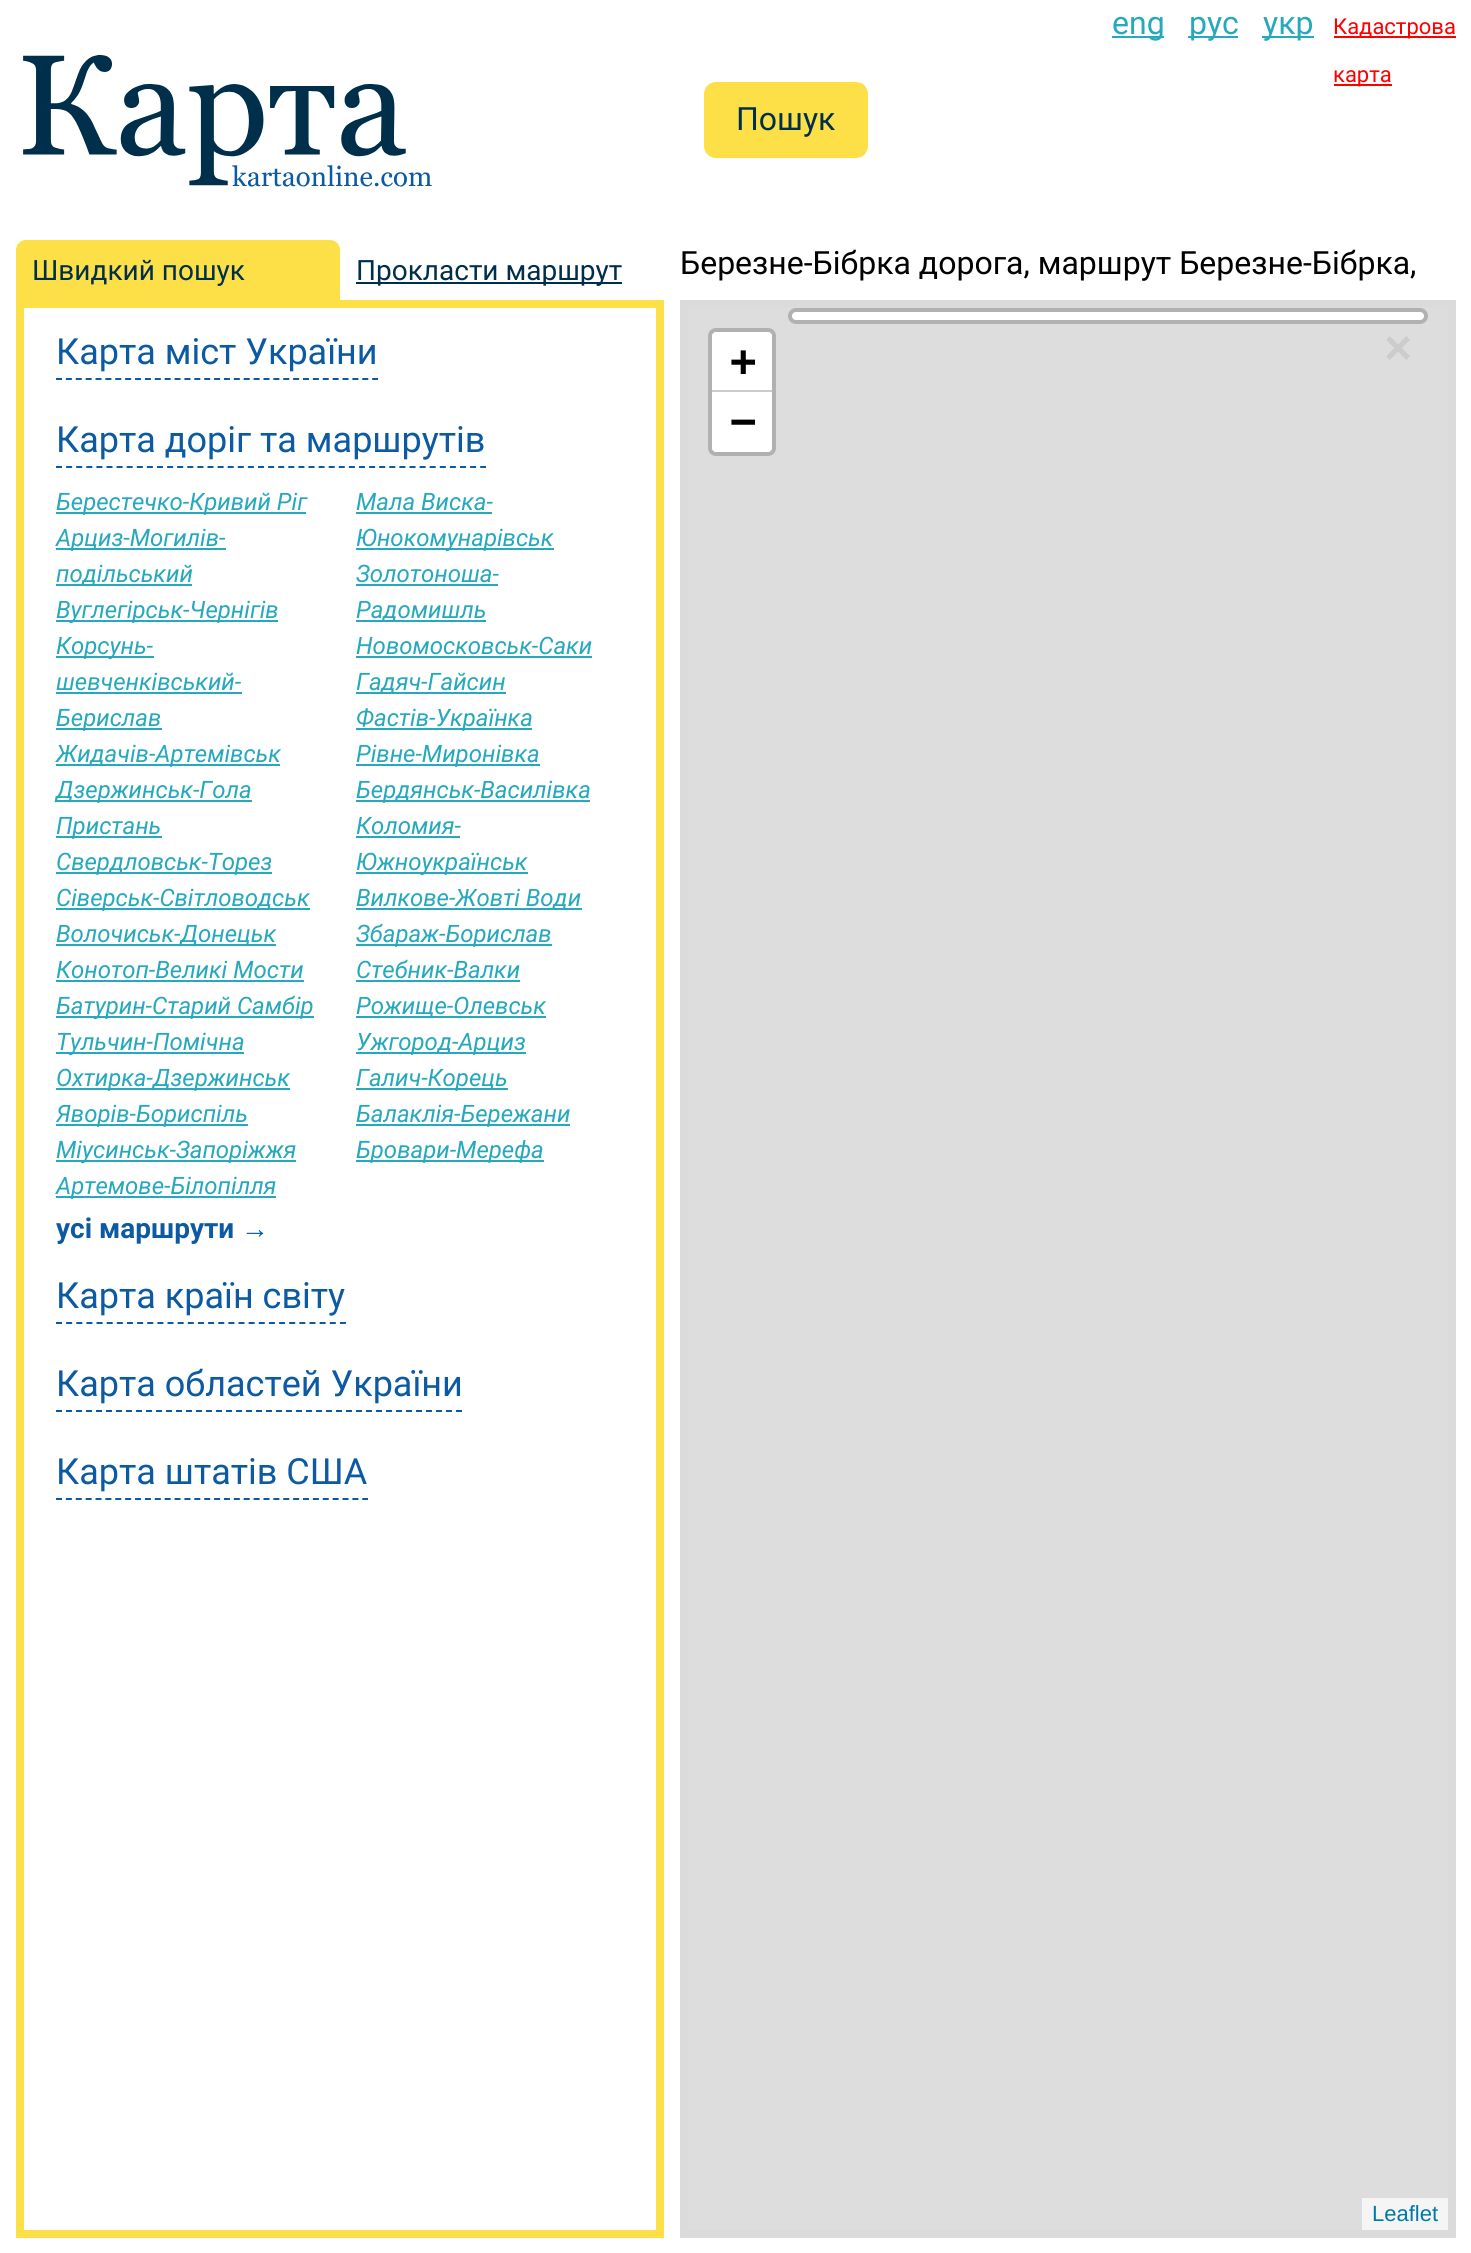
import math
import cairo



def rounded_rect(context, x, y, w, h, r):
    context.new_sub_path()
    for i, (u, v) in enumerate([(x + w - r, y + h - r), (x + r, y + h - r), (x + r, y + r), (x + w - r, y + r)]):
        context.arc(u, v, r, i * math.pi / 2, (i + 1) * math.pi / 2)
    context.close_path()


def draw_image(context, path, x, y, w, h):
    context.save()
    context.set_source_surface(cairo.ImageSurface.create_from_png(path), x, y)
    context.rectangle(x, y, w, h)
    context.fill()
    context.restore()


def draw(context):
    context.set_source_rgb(1, 1, 1)
    context.paint()
    draw_image(context, "images/1.png", 23, 55, 409, 132)
    context.set_source_rgb(253 / 255, 224 / 255, 71 / 255)
    rounded_rect(context, 704, 82, 164, 76, 12)
    context.fill()
    context.set_source_rgb(38 / 255, 168 / 255, 189 / 255)
    context.rectangle(1112, 36, 52, 2)
    context.fill()
    context.rectangle(1188, 36, 50, 2)
    context.fill()
    context.rectangle(1262, 36, 52, 2)
    context.fill()
    context.set_source_rgb(1, 0, 0)
    context.rectangle(1334, 36, 122, 2)
    context.fill()
    context.rectangle(1334, 84, 58, 2)
    context.fill()
    context.set_source_rgb(253 / 255, 224 / 255, 71 / 255)
    context.new_path()
    context.move_to(26, 240)
    context.line_to(330, 240)
    context.curve_to(335.5, 240, 340, 244.5, 340, 250)
    context.line_to(340, 300)
    context.line_to(16, 300)
    context.line_to(16, 250)
    context.curve_to(16, 244.5, 20.5, 240, 26, 240)
    context.close_path()
    context.fill()
    context.set_source_rgb(0, 47 / 255, 75 / 255)
    context.rectangle(356, 282, 266, 2)
    context.fill()
    context.rectangle(20, 304, 640, 1930)
    context.set_source_rgb(253 / 255, 224 / 255, 71 / 255)
    context.set_line_width(8)
    context.stroke()
    context.new_path()
    context.move_to(56, 379)
    context.line_to(378, 379)
    context.set_source_rgb(11 / 255, 90 / 255, 163 / 255)
    context.set_line_width(2)
    context.set_dash([6, 3.88])
    context.stroke()
    context.new_path()
    context.move_to(56, 467)
    context.line_to(486, 467)
    context.set_dash([6, 4.1])
    context.stroke()
    context.set_source_rgb(38 / 255, 168 / 255, 189 / 255)
    context.rectangle(56, 512, 250, 2)
    context.fill()
    context.rectangle(356, 512, 136, 2)
    context.fill()
    context.rectangle(356, 548, 198, 2)
    context.fill()
    context.rectangle(56, 548, 170, 2)
    context.fill()
    context.rectangle(56, 584, 136, 2)
    context.fill()
    context.rectangle(56, 620, 222, 2)
    context.fill()
    context.rectangle(356, 584, 142, 2)
    context.fill()
    context.rectangle(356, 620, 130, 2)
    context.fill()
    context.rectangle(56, 656, 98, 2)
    context.fill()
    context.rectangle(56, 692, 186, 2)
    context.fill()
    context.rectangle(56, 728, 106, 2)
    context.fill()
    context.rectangle(356, 656, 236, 2)
    context.fill()
    context.rectangle(356, 692, 150, 2)
    context.fill()
    context.rectangle(356, 728, 176, 2)
    context.fill()
    context.rectangle(56, 764, 224, 2)
    context.fill()
    context.rectangle(356, 764, 184, 2)
    context.fill()
    context.rectangle(56, 800, 196, 2)
    context.fill()
    context.rectangle(56, 836, 106, 2)
    context.fill()
    context.rectangle(356, 800, 234, 2)
    context.fill()
    context.rectangle(56, 872, 216, 2)
    context.fill()
    context.rectangle(356, 836, 104, 2)
    context.fill()
    context.rectangle(356, 872, 172, 2)
    context.fill()
    context.rectangle(56, 908, 254, 2)
    context.fill()
    context.rectangle(356, 908, 226, 2)
    context.fill()
    context.rectangle(56, 944, 220, 2)
    context.fill()
    context.rectangle(356, 944, 196, 2)
    context.fill()
    context.rectangle(56, 980, 248, 2)
    context.fill()
    context.rectangle(356, 980, 164, 2)
    context.fill()
    context.rectangle(56, 1016, 258, 2)
    context.fill()
    context.rectangle(356, 1016, 190, 2)
    context.fill()
    context.rectangle(56, 1052, 188, 2)
    context.fill()
    context.rectangle(356, 1052, 170, 2)
    context.fill()
    context.rectangle(56, 1088, 234, 2)
    context.fill()
    context.rectangle(356, 1088, 152, 2)
    context.fill()
    context.rectangle(56, 1124, 192, 2)
    context.fill()
    context.rectangle(356, 1124, 214, 2)
    context.fill()
    context.rectangle(56, 1160, 240, 2)
    context.fill()
    context.rectangle(356, 1160, 188, 2)
    context.fill()
    context.rectangle(56, 1196, 220, 2)
    context.fill()
    context.new_path()
    context.move_to(56, 1323)
    context.line_to(346, 1323)
    context.set_source_rgb(11 / 255, 90 / 255, 163 / 255)
    context.set_dash([6, 4.14])
    context.stroke()
    context.new_path()
    context.move_to(56, 1411)
    context.line_to(462, 1411)
    context.set_dash([6, 4])
    context.stroke()
    context.new_path()
    context.move_to(56, 1499)
    context.line_to(368, 1499)
    context.set_dash([6, 3.88])
    context.stroke()
    context.set_source_rgb(221 / 255, 221 / 255, 221 / 255)
    context.rectangle(684, 304, 768, 1930)
    context.fill_preserve()
    context.set_source_rgb(219 / 255, 219 / 255, 219 / 255)
    context.set_line_width(8)
    context.set_dash([])
    context.stroke()
    rounded_rect(context, 710, 330, 64, 124, 6)
    context.set_source_rgb(177 / 255, 177 / 255, 177 / 255)
    context.set_line_width(4)
    context.stroke()
    context.set_source_rgb(1, 1, 1)
    context.new_path()
    context.move_to(716, 332)
    context.line_to(768, 332)
    context.curve_to(770, 332, 772, 334, 772, 336)
    context.line_to(772, 390)
    context.line_to(712, 390)
    context.line_to(712, 336)
    context.curve_to(712, 334, 714, 332, 716, 332)
    context.close_path()
    context.fill()
    context.set_source_rgb(204 / 255, 204 / 255, 204 / 255)
    context.rectangle(712, 390, 60, 2)
    context.fill()
    context.set_source_rgb(1, 1, 1)
    context.new_path()
    context.move_to(712, 392)
    context.line_to(772, 392)
    context.line_to(772, 448)
    context.curve_to(772, 450, 770, 452, 768, 452)
    context.line_to(716, 452)
    context.curve_to(714, 452, 712, 450, 712, 448)
    context.close_path()
    context.fill()
    rounded_rect(context, 792, 312, 632, 8, 4)
    context.fill()
    rounded_rect(context, 790, 310, 636, 12, 6)
    context.set_source_rgba(0, 0, 0, 0.2)
    context.stroke()
    context.set_source_rgb(245 / 255, 245 / 255, 245 / 255)
    context.rectangle(1362, 2198, 86, 32)
    context.fill()
    context.select_font_face("Roboto")
    context.set_font_size(32)
    context.set_source_rgb(0, 47 / 255, 75 / 255)
    context.move_to(736, 130)
    context.show_text("Пошук")
    context.set_source_rgb(38 / 255, 168 / 255, 189 / 255)
    context.move_to(1112, 34)
    context.show_text("eng")
    context.move_to(1189, 34)
    context.show_text("рус")
    context.move_to(1263, 34)
    context.show_text("укр")
    context.set_font_size(22)
    context.set_source_rgb(1, 0, 0)
    context.move_to(1333, 34)
    context.show_text("Кадастрова")
    context.move_to(1333, 82)
    context.show_text("карта")
    context.set_font_size(28)
    context.set_source_rgb(0, 47 / 255, 75 / 255)
    context.move_to(32, 280)
    context.show_text("Швидкий пошук")
    context.move_to(356, 280)
    context.show_text("Прокласти маршрут")
    context.set_font_size(36)
    context.set_source_rgb(11 / 255, 90 / 255, 163 / 255)
    context.move_to(56, 364)
    context.show_text("Карта міст України")
    context.move_to(56, 452)
    context.show_text("Карта доріг та маршрутів")
    context.select_font_face("Roboto", cairo.FontSlant.ITALIC)
    context.set_font_size(24)
    context.set_source_rgb(38 / 255, 168 / 255, 189 / 255)
    context.move_to(56, 510)
    context.show_text("Берестечко-Кривий Ріг")
    context.move_to(356, 510)
    context.show_text("Мала Виска-")
    context.move_to(356, 546)
    context.show_text("Юнокомунарівськ")
    context.move_to(56, 546)
    context.show_text("Арциз-Могилів-")
    context.move_to(56, 582)
    context.show_text("подільський")
    context.move_to(56, 618)
    context.show_text("Вуглегірськ-Чернігів")
    context.move_to(356, 582)
    context.show_text("Золотоноша-")
    context.move_to(356, 618)
    context.show_text("Радомишль")
    context.move_to(56, 654)
    context.show_text("Корсунь-")
    context.move_to(56, 690)
    context.show_text("шевченківський-")
    context.move_to(56, 726)
    context.show_text("Берислав")
    context.move_to(356, 654)
    context.show_text("Новомосковськ-Саки")
    context.move_to(356, 690)
    context.show_text("Гадяч-Гайсин")
    context.move_to(356, 726)
    context.show_text("Фастів-Українка")
    context.move_to(56, 762)
    context.show_text("Жидачів-Артемівськ")
    context.move_to(356, 762)
    context.show_text("Рівне-Миронівка")
    context.move_to(56, 798)
    context.show_text("Дзержинськ-Гола")
    context.move_to(56, 834)
    context.show_text("Пристань")
    context.move_to(356, 798)
    context.show_text("Бердянськ-Василівка")
    context.move_to(56, 870)
    context.show_text("Свердловськ-Торез")
    context.move_to(356, 834)
    context.show_text("Коломия-")
    context.move_to(356, 870)
    context.show_text("Южноукраїнськ")
    context.move_to(56, 906)
    context.show_text("Сіверськ-Світловодськ")
    context.move_to(356, 906)
    context.show_text("Вилкове-Жовті Води")
    context.move_to(56, 942)
    context.show_text("Волочиськ-Донецьк")
    context.move_to(356, 942)
    context.show_text("Збараж-Борислав")
    context.move_to(56, 978)
    context.show_text("Конотоп-Великі Мости")
    context.move_to(356, 978)
    context.show_text("Стебник-Валки")
    context.move_to(56, 1014)
    context.show_text("Батурин-Старий Самбір")
    context.move_to(356, 1014)
    context.show_text("Рожище-Олевськ")
    context.move_to(56, 1050)
    context.show_text("Тульчин-Помічна")
    context.move_to(356, 1050)
    context.show_text("Ужгород-Арциз")
    context.move_to(56, 1086)
    context.show_text("Охтирка-Дзержинськ")
    context.move_to(356, 1086)
    context.show_text("Галич-Корець")
    context.move_to(56, 1122)
    context.show_text("Яворів-Бориспіль")
    context.move_to(356, 1122)
    context.show_text("Балаклія-Бережани")
    context.move_to(56, 1158)
    context.show_text("Міусинськ-Запоріжжя")
    context.move_to(356, 1158)
    context.show_text("Бровари-Мерефа")
    context.move_to(56, 1194)
    context.show_text("Артемове-Білопілля")
    context.select_font_face("Roboto", cairo.FontSlant.NORMAL, cairo.FontWeight.BOLD)
    context.set_font_size(28)
    context.set_source_rgb(11 / 255, 90 / 255, 163 / 255)
    context.move_to(56, 1238)
    context.show_text("усі маршрути")
    context.select_font_face("Liberation Sans", cairo.FontSlant.NORMAL, cairo.FontWeight.BOLD)
    context.move_to(241, 1238)
    context.show_text("→")
    context.select_font_face("Roboto")
    context.set_font_size(36)
    context.move_to(56, 1308)
    context.show_text("Карта країн світу")
    context.move_to(56, 1396)
    context.show_text("Карта областей України")
    context.move_to(56, 1484)
    context.show_text("Карта штатів США")
    context.set_font_size(32)
    context.set_source_rgb(0, 0, 0)
    context.move_to(680, 274)
    context.show_text("Березне-Бібрка дорога, маршрут Березне-Бібрка,")
    context.select_font_face("DejaVu Sans Mono", cairo.FontSlant.NORMAL, cairo.FontWeight.BOLD)
    context.set_font_size(44)
    context.move_to(730, 376)
    context.show_text("+")
    context.move_to(730, 436)
    context.show_text("−")
    context.select_font_face("Liberation Sans", cairo.FontSlant.NORMAL, cairo.FontWeight.BOLD)
    context.set_font_size(48)
    context.set_source_rgb(204 / 255, 204 / 255, 204 / 255)
    context.move_to(1384, 364)
    context.show_text("×")
    context.select_font_face("Liberation Sans")
    context.set_font_size(22)
    context.set_source_rgb(0, 120 / 255, 168 / 255)
    context.move_to(1372, 2221)
    context.show_text("Leaflet")


surface = cairo.ImageSurface(cairo.Format.RGB24, 1471, 2253)
context = cairo.Context(surface)
options = cairo.FontOptions()
options.set_hint_metrics(cairo.HintMetrics.OFF)
options.set_hint_style(cairo.HintStyle.NONE)
context.set_font_options(options)
context.set_miter_limit(4)
draw(context)
surface.write_to_png("out.png")
